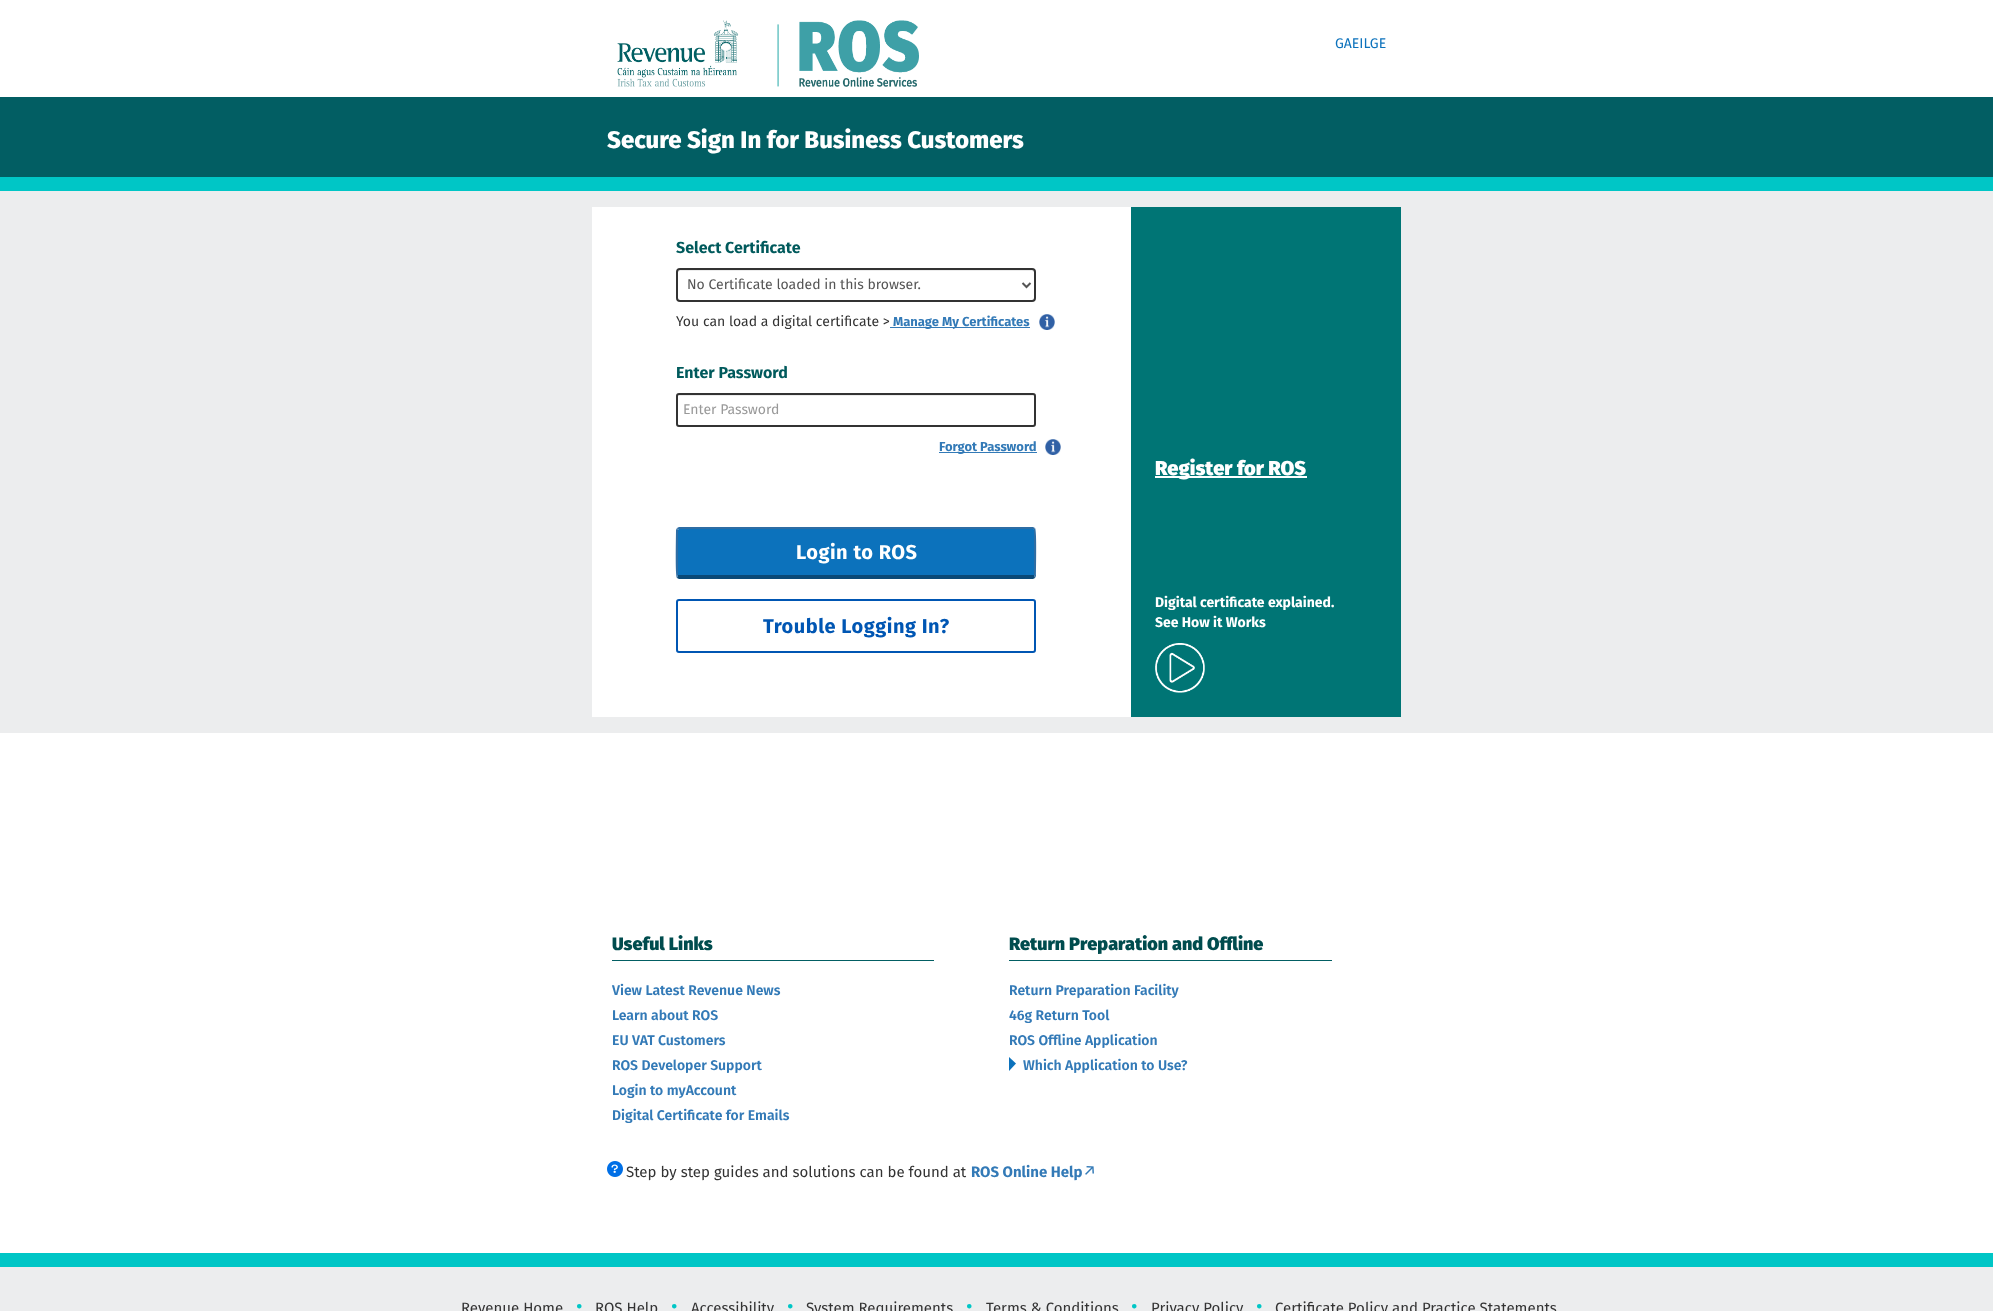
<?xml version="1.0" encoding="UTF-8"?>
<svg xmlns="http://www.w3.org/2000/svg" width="1993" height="1311">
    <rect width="100%" height="100%" fill="#FFFFFF"/>
    <image x="617" y="20" width="162" height="67" href="img_01.png"/>
    <image x="799" y="20" width="120" height="67" href="img_02.png"/>
    <text x="1335" y="48" font-family="Fira Sans" font-size="14" fill="#0C72BC">GAEILGE</text>
    <rect x="0" y="97" width="1993" height="80" fill="#025E63"/>
    <rect x="0" y="177" width="1993" height="14" fill="#00C6C6"/>
    <text x="607" y="148" font-family="Fira Sans" font-size="24" font-weight="800" fill="#FFFFFF">Secure Sign In for Business Customers</text>
    <rect x="0" y="191" width="1993" height="542" fill="#ECEDEE"/>
    <rect x="592" y="207" width="539" height="510" fill="#FFFFFF"/>
    <text x="676" y="253" font-family="Fira Sans" font-size="16" font-weight="700" fill="#005A5C">Select Certificate</text>
    <path d="M 680 271 H 1032 C 1033 271 1034 272 1034 273 C 1034 272 1034 270 1032 270 H 680 C 678 270 678 272 678 273 C 678 272 679 271 680 271 Z" fill="#ECECEC"/>
    <rect x="677" y="269" width="358" height="32" rx="3" fill="none" stroke="#333333" stroke-width="2"/>
    <path d="M 1022.5 283 L 1026.5 287 L 1030.5 283" fill="none" stroke="#555555" stroke-width="2"/>
    <text x="687" y="289" font-family="Fira Sans" font-size="14" fill="#555555">No Certificate loaded in this browser.</text>
    <text x="676" y="326" font-family="Fira Sans" font-size="14" fill="#333333">You can load a digital certificate &gt;</text>
    <rect x="890" y="327" width="140" height="1" fill="#337AB7"/>
    <text x="893" y="326" font-family="Fira Sans" font-size="13" font-weight="700" fill="#337AB7">Manage My Certificates</text>
    <image x="1039" y="314" width="16" height="16" href="img_03.png"/>
    <text x="676" y="378" font-family="Fira Sans" font-size="16" font-weight="700" fill="#005A5C">Enter Password</text>
    <path d="M 679 396 H 1033 C 1034 396 1034 396 1034 397 V 396 L 1033 395 H 678 V 397 C 678 396 678 396 679 396 Z" fill="#ECECEC"/>
    <rect x="677" y="394" width="358" height="32" rx="2" fill="none" stroke="#333333" stroke-width="2"/>
    <text x="683" y="414" font-family="Fira Sans" font-size="14" fill="#999999">Enter Password</text>
    <rect x="939" y="452" width="98" height="1" fill="#337AB7"/>
    <text x="939" y="451" font-family="Fira Sans" font-size="13" font-weight="700" fill="#337AB7">Forgot Password</text>
    <image x="1045" y="439" width="16" height="16" href="img_03.png"/>
    <path d="M 679 529 H 1033 C 1034 529 1034 529 1034 530 V 575 H 678 V 530 Z" fill="#0C72BC"/>
    <path d="M 679 527 L 677 528 L 678 530 L 679 529 H 1034 L 1035 528 L 1033 527 Z" fill="#2E6DA4"/>
    <path d="M 1036 576 C 1036 570 1037 530 1035 528 L 1034 529 V 575 L 1035 578 Z" fill="#2E6DA4"/>
    <path d="M 679 579 H 1033 L 1035 578 L 1034 575 H 678 L 677 578 Z" fill="#0A4977"/>
    <path d="M 676 530 C 676 536 675 576 677 578 L 678 575 V 530 L 677 528 Z" fill="#2E6DA4"/>
    <text x="796" y="559" font-family="Fira Sans" font-size="20" font-weight="700" letter-spacing="0.5" fill="#FFFFFF">Login to ROS</text>
    <rect x="677" y="600" width="358" height="52" rx="2" fill="none" stroke="#0056B3" stroke-width="2"/>
    <text x="763" y="633" font-family="Fira Sans" font-size="20" font-weight="700" letter-spacing="0.5" fill="#0056B3">Trouble Logging In?</text>
    <rect x="1131" y="207" width="270" height="510" fill="#007575"/>
    <rect x="1155" y="476" width="152" height="2" fill="#FFFFFF"/>
    <text x="1155" y="475" font-family="Fira Sans" font-size="20" font-weight="900" fill="#FFFFFF">Register for ROS</text>
    <text font-family="Fira Sans" font-size="14" font-weight="700" fill="#FFFFFF">
        <tspan x="1155" y="607">Digital certificate explained.</tspan>
        <tspan x="1155" y="627">See How it Works</tspan>
    </text>
    <image x="1155" y="643" width="50" height="50" href="img_04.png"/>
    <rect x="612" y="960" width="322" height="1" fill="#025E63"/>
    <text x="612" y="950" font-family="Fira Sans" font-size="18" font-weight="900" fill="#004C4E">Useful Links</text>
    <text font-family="Fira Sans" font-size="14" font-weight="600" fill="#337AB7">
        <tspan x="612" y="995">View Latest Revenue News</tspan>
        <tspan x="612" y="1020">Learn about ROS</tspan>
        <tspan x="612" y="1045">EU VAT Customers</tspan>
        <tspan x="612" y="1070">ROS Developer Support</tspan>
        <tspan x="612" y="1095">Login to myAccount</tspan>
        <tspan x="612" y="1120">Digital Certificate for Emails</tspan>
    </text>
    <rect x="1009" y="960" width="323" height="1" fill="#025E63"/>
    <text x="1009" y="950" font-family="Fira Sans" font-size="18" font-weight="900" fill="#004C4E">Return Preparation and Offline</text>
    <text font-family="Fira Sans" font-size="14" font-weight="600" fill="#337AB7">
        <tspan x="1009" y="995">Return Preparation Facility</tspan>
        <tspan x="1009" y="1020">46g Return Tool</tspan>
        <tspan x="1009" y="1045">ROS Offline Application</tspan>
    </text>
    <path d="M 1009 1057 V 1071 L 1016 1063.5 Z" fill="#0C72BC"/>
    <text x="1023" y="1070" font-family="Fira Sans" font-size="14" font-weight="600" fill="#337AB7">Which Application to Use?</text>
    <image x="607" y="1161" width="16" height="16" href="img_05.png"/>
    <text x="626" y="1177" font-family="Fira Sans" font-size="15" fill="#333333">Step by step guides and solutions can be found at</text>
    <text x="971" y="1177" font-family="Fira Sans" font-size="15" font-weight="700" fill="#337AB7">ROS Online Help</text>
    <image x="1085" y="1166" width="9" height="9" href="img_06.png"/>
    <rect x="0" y="1267" width="1993" height="44" fill="#ECEDEE"/>
    <rect x="0" y="1253" width="1993" height="14" fill="#00C6C6"/>
    <text x="461" y="1313" font-family="Fira Sans" font-size="15" fill="#333333">Revenue Home</text>
    <text x="576" y="1313" font-family="Fira Sans" font-size="20" fill="#00C6C6">•</text>
    <text x="595" y="1313" font-family="Fira Sans" font-size="15" fill="#333333">ROS Help</text>
    <text x="671" y="1313" font-family="Fira Sans" font-size="20" fill="#00C6C6">•</text>
    <text x="691" y="1313" font-family="Fira Sans" font-size="15" fill="#333333">Accessibility</text>
    <text x="787" y="1313" font-family="Fira Sans" font-size="20" fill="#00C6C6">•</text>
    <text x="806" y="1313" font-family="Fira Sans" font-size="15" fill="#333333">System Requirements</text>
    <text x="966" y="1313" font-family="Fira Sans" font-size="20" fill="#00C6C6">•</text>
    <text x="986" y="1313" font-family="Fira Sans" font-size="15" fill="#333333">Terms &amp; Conditions</text>
    <text x="1131" y="1313" font-family="Fira Sans" font-size="20" fill="#00C6C6">•</text>
    <text x="1151" y="1313" font-family="Fira Sans" font-size="15" fill="#333333">Privacy Policy</text>
    <text x="1256" y="1313" font-family="Fira Sans" font-size="20" fill="#00C6C6">•</text>
    <text x="1275" y="1313" font-family="Fira Sans" font-size="15" fill="#333333">Certificate Policy and Practice Statements</text>
</svg>
